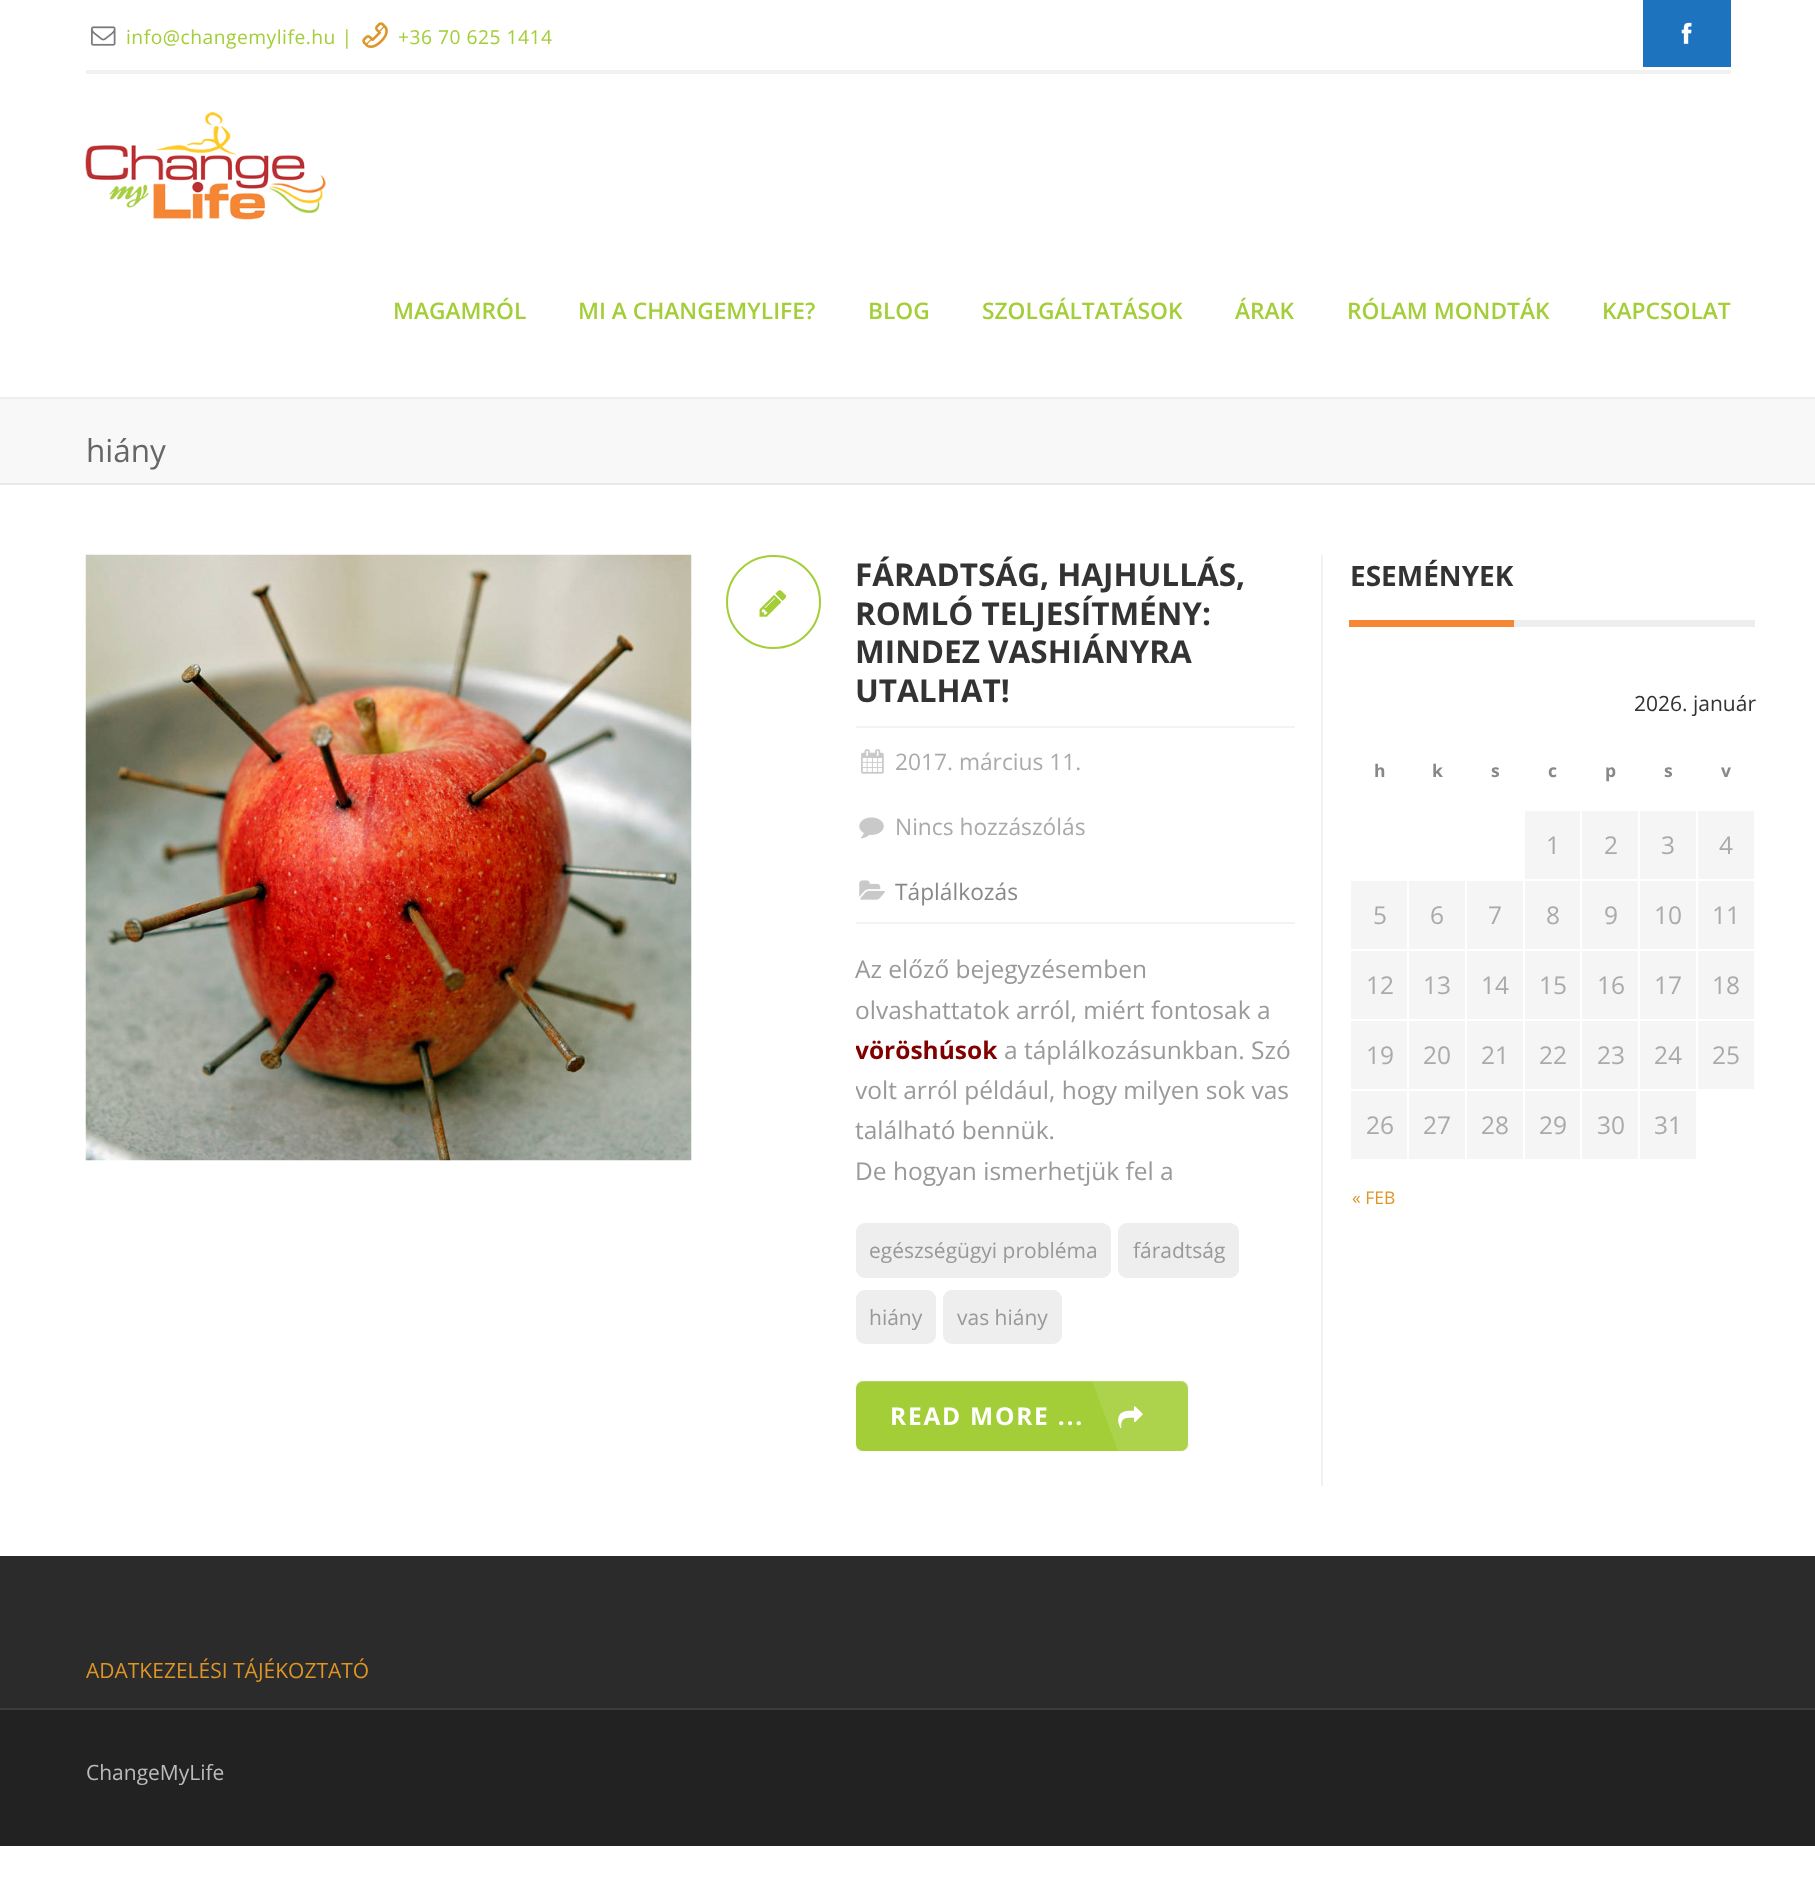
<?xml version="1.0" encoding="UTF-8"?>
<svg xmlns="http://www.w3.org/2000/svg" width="1815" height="1887">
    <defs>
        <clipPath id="clip1"><rect x="856" y="555" width="439" height="896"/></clipPath>
        <clipPath id="clip2"><rect x="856" y="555" width="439" height="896"/></clipPath>
        <filter id="blur1" x="-50%" y="-200%" width="200%" height="500%"><feGaussianBlur stdDeviation="2"/></filter>
    </defs>
    <rect width="100%" height="100%" fill="#FFFFFF"/>
    <rect x="86" y="70" width="1645" height="4" fill="#F1F1F1"/>
    <image x="91" y="26" width="25" height="20" href="img_01.png"/>
    <text x="126" y="44" font-family="Open Sans" font-size="19.25" letter-spacing="0.5" fill="#A3CE37">info@changemylife.hu |</text>
    <image x="362" y="22" width="26" height="26" href="img_02.png"/>
    <text x="398" y="44" font-family="Open Sans" font-size="19.25" letter-spacing="0.5" fill="#A3CE37">+36 70 625 1414</text>
    <rect x="1643" y="0" width="88" height="67" fill="#1E73BE"/>
    <image x="1681" y="22" width="11" height="22" href="img_03.png"/>
    <image x="85" y="112" width="241" height="108" href="img_04.png"/>
    <text x="393" y="319" font-family="Open Sans" font-size="22.75" font-weight="600" fill="#A3CE37">MAGAMRÓL</text>
    <text x="578" y="319" font-family="Open Sans" font-size="22.75" font-weight="600" fill="#A3CE37">MI A CHANGEMYLIFE?</text>
    <text x="868" y="319" font-family="Open Sans" font-size="22.75" font-weight="600" fill="#A3CE37">BLOG</text>
    <text x="982" y="319" font-family="Open Sans" font-size="22.75" font-weight="600" fill="#A3CE37">SZOLGÁLTATÁSOK</text>
    <text x="1235" y="319" font-family="Open Sans" font-size="22.75" font-weight="600" fill="#A3CE37">ÁRAK</text>
    <text x="1347" y="319" font-family="Open Sans" font-size="22.75" font-weight="600" fill="#A3CE37">RÓLAM MONDTÁK</text>
    <text x="1602" y="319" font-family="Open Sans" font-size="22.75" font-weight="600" fill="#A3CE37">KAPCSOLAT</text>
    <rect x="0" y="397" width="1815" height="2" fill="#EEEEEE"/>
    <rect x="0" y="399" width="1815" height="84" fill="#F8F8F8"/>
    <rect x="0" y="483" width="1815" height="2" fill="#E9E9E9"/>
    <text x="86" y="462" font-family="Open Sans" font-size="31.5" fill="#666666">hiány</text>
    <rect x="1321" y="555" width="2" height="931" fill="#F1F1F1"/>
    <image x="85" y="554" width="607" height="607" href="img_05.png"/>
    <rect x="727" y="556" width="93" height="92" rx="46" fill="none" stroke="#A3CE37" stroke-width="2"/>
    <image x="759" y="590" width="28" height="27" href="img_06.png"/>
    <text font-family="Open Sans" font-size="31.5" font-weight="700" fill="#333333">
        <tspan x="855" y="586">FÁRADTSÁG, HAJHULLÁS,</tspan>
        <tspan x="855" y="625">ROMLÓ TELJESÍTMÉNY:</tspan>
        <tspan x="855" y="663">MINDEZ VASHIÁNYRA</tspan>
        <tspan x="855" y="702">UTALHAT!</tspan>
    </text>
    <rect x="856" y="726" width="439" height="2" fill="#F3F3F3"/>
    <rect x="856" y="922" width="439" height="2" fill="#F3F3F3"/>
    <image x="861" y="749" width="23" height="25" href="img_07.png"/>
    <text x="895" y="770" font-family="Open Sans" font-size="22.75" fill="#AAAAAA">2017. március 11.</text>
    <image x="859" y="817" width="25" height="22" href="img_08.png"/>
    <text x="895" y="835" font-family="Open Sans" font-size="22.75" fill="#AAAAAA">Nincs hozzászólás</text>
    <image x="859" y="880" width="26" height="20" href="img_09.png"/>
    <text x="895" y="900" font-family="Open Sans" font-size="22.75" fill="#888888">Táplálkozás</text>
    <text font-family="Open Sans" font-size="24.5" fill="#999999">
        <tspan x="855" y="978">Az előző bejegyzésemben</tspan>
        <tspan x="855" y="1019">olvashattatok arról, miért fontosak a</tspan>
    </text>
    <g clip-path="url(#clip1)">
        <text x="855" y="1059" font-family="Open Sans" font-size="24.5" font-weight="700" fill="#800000">vöröshúsok</text>
    </g>
    <text x="1004" y="1059" font-family="Open Sans" font-size="24.5" fill="#999999">a táplálkozásunkban. Szó</text>
    <g clip-path="url(#clip1)">
        <text x="855" y="1099" font-family="Open Sans" font-size="24.5" fill="#999999">volt arról például, hogy milyen sok vas</text>
    </g>
    <text font-family="Open Sans" font-size="24.5" fill="#999999">
        <tspan x="855" y="1139">található bennük.</tspan>
        <tspan x="855" y="1180">De hogyan ismerhetjük fel a</tspan>
    </text>
    <rect x="856" y="1223" width="255" height="55" rx="9" fill="#EEEEEE"/>
    <text x="869" y="1258" font-family="Open Sans" font-size="21" fill="#999999">egészségügyi probléma</text>
    <rect x="1118" y="1223" width="121" height="55" rx="9" fill="#EEEEEE"/>
    <text x="1133" y="1258" font-family="Open Sans" font-size="21" fill="#999999">fáradtság</text>
    <rect x="856" y="1290" width="80" height="54" rx="9" fill="#EEEEEE"/>
    <text x="869" y="1325" font-family="Open Sans" font-size="21" fill="#999999">hiány</text>
    <rect x="943" y="1290" width="119" height="54" rx="9" fill="#EEEEEE"/>
    <text x="957" y="1325" font-family="Open Sans" font-size="21" fill="#999999">vas hiány</text>
    <g clip-path="url(#clip2)">
        <rect x="856" y="1383" width="332" height="70" rx="7" fill="#000000" fill-opacity="0.05" filter="url(#blur1)"/>
    </g>
    <rect x="856" y="1381" width="332" height="70" rx="7" fill="#A3CE37"/>
    <path d="M 863 1382 H 1181 C 1185 1382 1188 1386 1188 1390 V 1388 C 1188 1384 1185 1381 1181 1381 H 863 C 859 1381 856 1384 856 1388 V 1390 C 856 1386 859 1382 863 1382 Z" fill="#FFFFFF" fill-opacity="0.2"/>
    <path d="M 1118 1451 L 1092 1381 H 1181 C 1185 1381 1188 1384 1188 1388 V 1444 C 1188 1448 1185 1451 1181 1451 Z" fill="#FFFFFF" fill-opacity="0.1"/>
    <text x="890" y="1425" font-family="Open Sans" font-size="24.5" font-weight="700" letter-spacing="1.75" fill="#FFFFFF">READ MORE ...</text>
    <image x="1118" y="1406" width="25" height="23" href="img_10.png"/>
    <rect x="1514" y="620" width="241" height="7" fill="#EEEEEE"/>
    <text x="1350" y="586" font-family="Open Sans" font-size="28" font-weight="700" fill="#333333">ESEMÉNYEK</text>
    <rect x="1349" y="620" width="165" height="7" fill="#F58634"/>
    <text x="1634" y="711" font-family="Open Sans" font-size="21" fill="#333333">2026. január</text>
    <text x="1374" y="777" font-family="Open Sans" font-size="17.5" font-weight="700" fill="#888888">h</text>
    <text x="1432" y="777" font-family="Open Sans" font-size="17.5" font-weight="700" fill="#888888">k</text>
    <text x="1491" y="777" font-family="Open Sans" font-size="17.5" font-weight="700" fill="#888888">s</text>
    <text x="1548" y="777" font-family="Open Sans" font-size="17.5" font-weight="700" fill="#888888">c</text>
    <text x="1605" y="777" font-family="Open Sans" font-size="17.5" font-weight="700" fill="#888888">p</text>
    <text x="1664" y="777" font-family="Open Sans" font-size="17.5" font-weight="700" fill="#888888">s</text>
    <text x="1721" y="777" font-family="Open Sans" font-size="17.5" font-weight="700" fill="#888888">v</text>
    <rect x="1525" y="811" width="55" height="68" fill="#F5F5F5"/>
    <text x="1546" y="854" font-family="Open Sans" font-size="24.5" fill="#AAAAAA">1</text>
    <rect x="1582" y="811" width="56" height="68" fill="#F5F5F5"/>
    <text x="1604" y="854" font-family="Open Sans" font-size="24.5" fill="#AAAAAA">2</text>
    <rect x="1640" y="811" width="56" height="68" fill="#F5F5F5"/>
    <text x="1661" y="854" font-family="Open Sans" font-size="24.5" fill="#AAAAAA">3</text>
    <rect x="1698" y="811" width="56" height="68" fill="#F5F5F5"/>
    <text x="1719" y="854" font-family="Open Sans" font-size="24.5" fill="#AAAAAA">4</text>
    <rect x="1351" y="881" width="56" height="68" fill="#F5F5F5"/>
    <text x="1373" y="924" font-family="Open Sans" font-size="24.5" fill="#AAAAAA">5</text>
    <rect x="1409" y="881" width="56" height="68" fill="#F5F5F5"/>
    <text x="1430" y="924" font-family="Open Sans" font-size="24.5" fill="#AAAAAA">6</text>
    <rect x="1467" y="881" width="56" height="68" fill="#F5F5F5"/>
    <text x="1488" y="924" font-family="Open Sans" font-size="24.5" fill="#AAAAAA">7</text>
    <rect x="1525" y="881" width="55" height="68" fill="#F5F5F5"/>
    <text x="1546" y="924" font-family="Open Sans" font-size="24.5" fill="#AAAAAA">8</text>
    <rect x="1582" y="881" width="56" height="68" fill="#F5F5F5"/>
    <text x="1604" y="924" font-family="Open Sans" font-size="24.5" fill="#AAAAAA">9</text>
    <rect x="1640" y="881" width="56" height="68" fill="#F5F5F5"/>
    <text x="1654" y="924" font-family="Open Sans" font-size="24.5" fill="#AAAAAA">10</text>
    <rect x="1698" y="881" width="56" height="68" fill="#F5F5F5"/>
    <text x="1712" y="924" font-family="Open Sans" font-size="24.5" fill="#AAAAAA">11</text>
    <rect x="1351" y="951" width="56" height="68" fill="#F5F5F5"/>
    <text x="1366" y="994" font-family="Open Sans" font-size="24.5" fill="#AAAAAA">12</text>
    <rect x="1409" y="951" width="56" height="68" fill="#F5F5F5"/>
    <text x="1423" y="994" font-family="Open Sans" font-size="24.5" fill="#AAAAAA">13</text>
    <rect x="1467" y="951" width="56" height="68" fill="#F5F5F5"/>
    <text x="1481" y="994" font-family="Open Sans" font-size="24.5" fill="#AAAAAA">14</text>
    <rect x="1525" y="951" width="55" height="68" fill="#F5F5F5"/>
    <text x="1539" y="994" font-family="Open Sans" font-size="24.5" fill="#AAAAAA">15</text>
    <rect x="1582" y="951" width="56" height="68" fill="#F5F5F5"/>
    <text x="1597" y="994" font-family="Open Sans" font-size="24.5" fill="#AAAAAA">16</text>
    <rect x="1640" y="951" width="56" height="68" fill="#F5F5F5"/>
    <text x="1654" y="994" font-family="Open Sans" font-size="24.5" fill="#AAAAAA">17</text>
    <rect x="1698" y="951" width="56" height="68" fill="#F5F5F5"/>
    <text x="1712" y="994" font-family="Open Sans" font-size="24.5" fill="#AAAAAA">18</text>
    <rect x="1351" y="1021" width="56" height="68" fill="#F5F5F5"/>
    <text x="1366" y="1064" font-family="Open Sans" font-size="24.5" fill="#AAAAAA">19</text>
    <rect x="1409" y="1021" width="56" height="68" fill="#F5F5F5"/>
    <text x="1423" y="1064" font-family="Open Sans" font-size="24.5" fill="#AAAAAA">20</text>
    <rect x="1467" y="1021" width="56" height="68" fill="#F5F5F5"/>
    <text x="1481" y="1064" font-family="Open Sans" font-size="24.5" fill="#AAAAAA">21</text>
    <rect x="1525" y="1021" width="55" height="68" fill="#F5F5F5"/>
    <text x="1539" y="1064" font-family="Open Sans" font-size="24.5" fill="#AAAAAA">22</text>
    <rect x="1582" y="1021" width="56" height="68" fill="#F5F5F5"/>
    <text x="1597" y="1064" font-family="Open Sans" font-size="24.5" fill="#AAAAAA">23</text>
    <rect x="1640" y="1021" width="56" height="68" fill="#F5F5F5"/>
    <text x="1654" y="1064" font-family="Open Sans" font-size="24.5" fill="#AAAAAA">24</text>
    <rect x="1698" y="1021" width="56" height="68" fill="#F5F5F5"/>
    <text x="1712" y="1064" font-family="Open Sans" font-size="24.5" fill="#AAAAAA">25</text>
    <rect x="1351" y="1091" width="56" height="68" fill="#F5F5F5"/>
    <text x="1366" y="1134" font-family="Open Sans" font-size="24.5" fill="#AAAAAA">26</text>
    <rect x="1409" y="1091" width="56" height="68" fill="#F5F5F5"/>
    <text x="1423" y="1134" font-family="Open Sans" font-size="24.5" fill="#AAAAAA">27</text>
    <rect x="1467" y="1091" width="56" height="68" fill="#F5F5F5"/>
    <text x="1481" y="1134" font-family="Open Sans" font-size="24.5" fill="#AAAAAA">28</text>
    <rect x="1525" y="1091" width="55" height="68" fill="#F5F5F5"/>
    <text x="1539" y="1134" font-family="Open Sans" font-size="24.5" fill="#AAAAAA">29</text>
    <rect x="1582" y="1091" width="56" height="68" fill="#F5F5F5"/>
    <text x="1597" y="1134" font-family="Open Sans" font-size="24.5" fill="#AAAAAA">30</text>
    <rect x="1640" y="1091" width="56" height="68" fill="#F5F5F5"/>
    <text x="1654" y="1134" font-family="Open Sans" font-size="24.5" fill="#AAAAAA">31</text>
    <text x="1352" y="1204" font-family="Open Sans" font-size="17.5" fill="#DD9527">« FEB</text>
    <rect x="0" y="1556" width="1815" height="152" fill="#2B2B2B"/>
    <text x="86" y="1678" font-family="Open Sans" font-size="21" fill="#DD9527">ADATKEZELÉSI TÁJÉKOZTATÓ</text>
    <rect x="0" y="1710" width="1815" height="136" fill="#222222"/>
    <rect x="0" y="1708" width="1815" height="2" fill="#3C3C3C"/>
    <text x="86" y="1780" font-family="Open Sans" font-size="21" fill="#BBBBBB">ChangeMyLife</text>
</svg>
